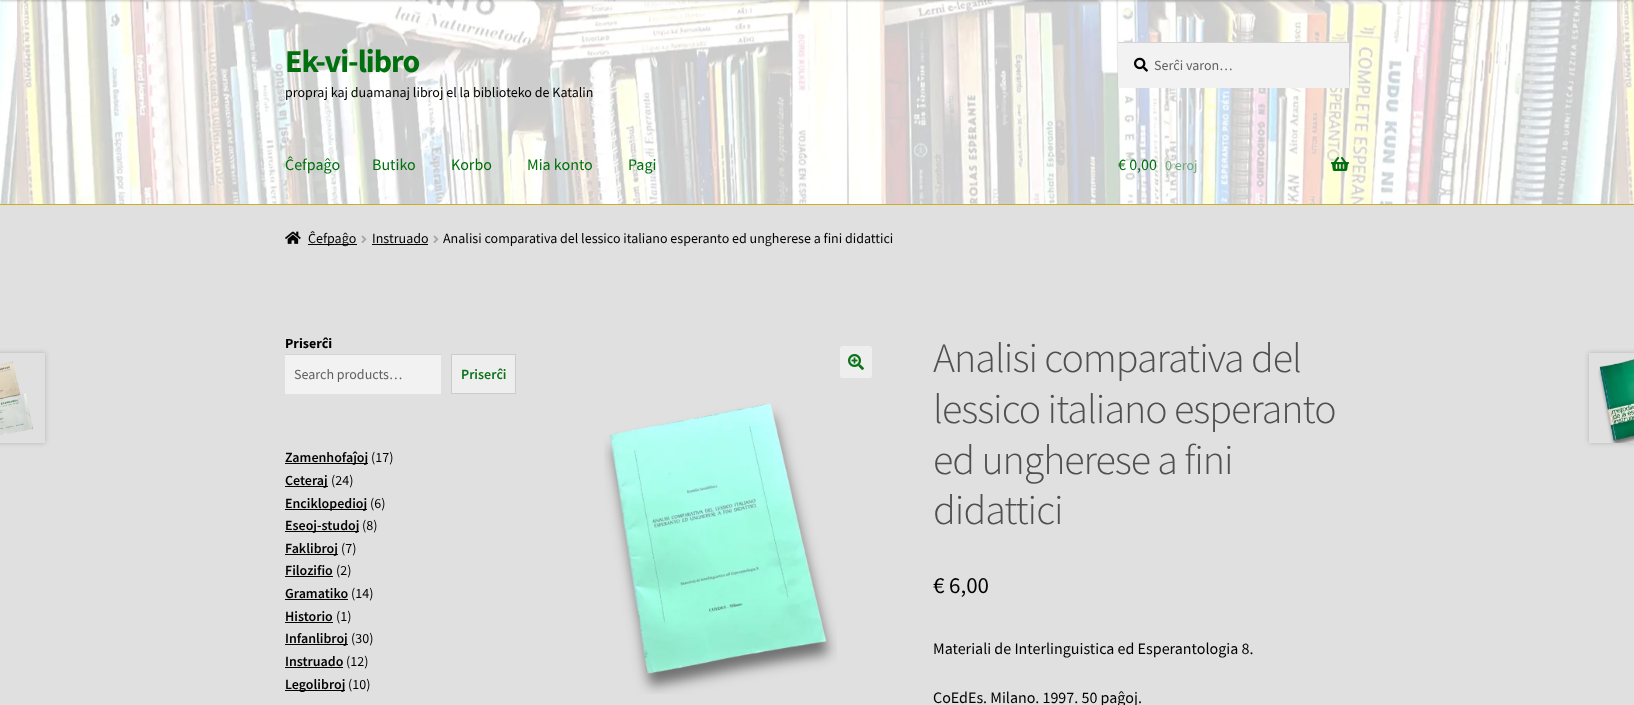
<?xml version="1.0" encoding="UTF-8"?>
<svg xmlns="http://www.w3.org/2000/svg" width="1634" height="705">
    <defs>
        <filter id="blur1" x="-50%" y="-200%" width="200%" height="500%"><feGaussianBlur stdDeviation="1"/></filter>
        <clipPath id="clip1"><path d="M 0 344 H 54 V 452 H 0 Z M -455 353 H 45 V 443 H -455 Z" clip-rule="evenodd"/></clipPath>
        <filter id="blur2" x="-50%" y="-200%" width="200%" height="500%"><feGaussianBlur stdDeviation="2.5"/></filter>
        <clipPath id="clip2"><path d="M 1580 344 H 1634 V 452 H 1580 Z M 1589 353 H 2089 V 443 H 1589 Z" clip-rule="evenodd"/></clipPath>
    </defs>
    <rect width="100%" height="100%" fill="#E0E0E0"/>
    <image x="0" y="0" width="1634" height="204" href="img_01.png"/>
    <rect x="0" y="-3" width="1634" height="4" fill="#000000" fill-opacity="0.2" filter="url(#blur1)"/>
    <rect x="0" y="204" width="1634" height="1" fill="#CCAD23"/>
    <text x="285" y="72" font-family="Source Sans Pro" font-size="32" font-weight="700" letter-spacing="-1" fill="#00700E">Ek-vi-libro</text>
    <text x="285" y="97" font-family="Source Sans Pro" font-size="14" fill="#000000">propraj kaj duamanaj libroj el la biblioteko de Katalin</text>
    <rect x="1118" y="43" width="231" height="45" fill="#F2F2F2"/>
    <image x="1134" y="57" width="14" height="15" href="img_02.png"/>
    <rect x="1118" y="42" width="231" height="1" fill="#D4D4D4"/>
    <text x="1154" y="70" font-family="Source Sans Pro" font-size="14" fill="#616161">Serĉi varon…</text>
    <text x="285" y="170" font-family="Source Sans Pro" font-size="16" fill="#00700E">Ĉefpaĝo</text>
    <text x="372" y="170" font-family="Source Sans Pro" font-size="16" fill="#00700E">Butiko</text>
    <text x="451" y="170" font-family="Source Sans Pro" font-size="16" fill="#00700E">Korbo</text>
    <text x="527" y="170" font-family="Source Sans Pro" font-size="16" fill="#00700E">Mia konto</text>
    <text x="628" y="170" font-family="Source Sans Pro" font-size="16" fill="#00700E">Pagi</text>
    <text x="1118" y="170" font-family="Source Sans Pro" font-size="16" fill="#00700E">€ 0,00</text>
    <text x="1165" y="170" font-family="Source Sans Pro" font-size="14" fill="#70AA7A">0 eroj</text>
    <image x="1331" y="157" width="18" height="14" href="img_03.png"/>
    <image x="285" y="231" width="16" height="13" href="img_04.png"/>
    <rect x="308" y="244" width="49" height="1" fill="#050505"/>
    <text x="308" y="243" font-family="Source Sans Pro" font-size="14" fill="#000000">Ĉefpaĝo</text>
    <image x="361" y="235" width="6" height="8" href="img_05.png"/>
    <text x="372" y="243" font-family="Source Sans Pro" font-size="14" fill="#000000">Instruado</text>
    <rect x="372" y="244" width="56" height="1" fill="#050505"/>
    <image x="433" y="235" width="6" height="8" href="img_05.png"/>
    <text x="443" y="243" font-family="Source Sans Pro" font-size="14" fill="#000000">Analisi comparativa del lessico italiano esperanto ed ungherese a fini didattici</text>
    <text x="285" y="348" font-family="Source Sans Pro" font-size="14" font-weight="700" fill="#000000">Priserĉi</text>
    <rect x="285" y="355" width="156" height="39" fill="#F2F2F2"/>
    <rect x="285" y="354" width="156" height="1" fill="#D4D4D4"/>
    <text x="294" y="379" font-family="Source Sans Pro" font-size="14" fill="#616161">Search products…</text>
    <rect x="451.5" y="354.5" width="64" height="39" fill="#EEEEEE" stroke="#CCCCCC"/>
    <text x="461" y="379" font-family="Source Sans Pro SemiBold" font-size="14" font-weight="600" fill="#0B7219">Priserĉi</text>
    <rect x="285" y="463" width="83" height="1" fill="#050505"/>
    <text x="285" y="462" font-family="Source Sans Pro SemiBold" font-size="14" font-weight="600" fill="#000000">Zamenhofaĵoj</text>
    <text x="371" y="462" font-family="Source Sans Pro" font-size="14" fill="#000000">(17)</text>
    <rect x="285" y="486" width="43" height="1" fill="#050505"/>
    <text x="285" y="485" font-family="Source Sans Pro SemiBold" font-size="14" font-weight="600" fill="#000000">Ceteraj</text>
    <text x="331" y="485" font-family="Source Sans Pro" font-size="14" fill="#000000">(24)</text>
    <rect x="285" y="509" width="82" height="1" fill="#050505"/>
    <text x="285" y="508" font-family="Source Sans Pro SemiBold" font-size="14" font-weight="600" fill="#000000">Enciklopedioj</text>
    <text x="370" y="508" font-family="Source Sans Pro" font-size="14" fill="#000000">(6)</text>
    <rect x="285" y="531" width="74" height="1" fill="#050505"/>
    <text x="285" y="530" font-family="Source Sans Pro SemiBold" font-size="14" font-weight="600" fill="#000000">Eseoj-studoj</text>
    <text x="362" y="530" font-family="Source Sans Pro" font-size="14" fill="#000000">(8)</text>
    <rect x="285" y="554" width="53" height="1" fill="#050505"/>
    <text x="285" y="553" font-family="Source Sans Pro SemiBold" font-size="14" font-weight="600" fill="#000000">Faklibroj</text>
    <text x="341" y="553" font-family="Source Sans Pro" font-size="14" fill="#000000">(7)</text>
    <text x="285" y="575" font-family="Source Sans Pro SemiBold" font-size="14" font-weight="600" fill="#000000">Filozifio</text>
    <rect x="285" y="576" width="48" height="1" fill="#050505"/>
    <text x="336" y="575" font-family="Source Sans Pro" font-size="14" fill="#000000">(2)</text>
    <text x="285" y="598" font-family="Source Sans Pro SemiBold" font-size="14" font-weight="600" fill="#000000">Gramatiko</text>
    <rect x="285" y="599" width="63" height="1" fill="#050505"/>
    <text x="351" y="598" font-family="Source Sans Pro" font-size="14" fill="#000000">(14)</text>
    <text x="285" y="621" font-family="Source Sans Pro SemiBold" font-size="14" font-weight="600" fill="#000000">Historio</text>
    <rect x="285" y="622" width="48" height="1" fill="#050505"/>
    <text x="336" y="621" font-family="Source Sans Pro" font-size="14" fill="#000000">(1)</text>
    <rect x="285" y="644" width="63" height="1" fill="#050505"/>
    <text x="285" y="643" font-family="Source Sans Pro SemiBold" font-size="14" font-weight="600" fill="#000000">Infanlibroj</text>
    <text x="351" y="643" font-family="Source Sans Pro" font-size="14" fill="#000000">(30)</text>
    <text x="285" y="666" font-family="Source Sans Pro SemiBold" font-size="14" font-weight="600" fill="#000000">Instruado</text>
    <rect x="285" y="667" width="58" height="1" fill="#050505"/>
    <text x="346" y="666" font-family="Source Sans Pro" font-size="14" fill="#000000">(12)</text>
    <rect x="285" y="690" width="60" height="1" fill="#050505"/>
    <text x="285" y="689" font-family="Source Sans Pro SemiBold" font-size="14" font-weight="600" fill="#000000">Legolibroj</text>
    <text x="348" y="689" font-family="Source Sans Pro" font-size="14" fill="#000000">(10)</text>
    <text font-family="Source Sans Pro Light" font-size="41.9" font-weight="300" letter-spacing="-1" fill="#4F4F4F">
        <tspan x="933" y="372">Analisi comparativa del</tspan>
        <tspan x="933" y="423">lessico italiano esperanto</tspan>
        <tspan x="933" y="474">ed ungherese a fini</tspan>
        <tspan x="933" y="524">didattici</tspan>
    </text>
    <text x="933" y="593" font-family="Source Sans Pro" font-size="23" fill="#000000">€ 6,00</text>
    <text x="933" y="654" font-family="Source Sans Pro" font-size="16" fill="#000000">Materiali de Interlinguistica ed Esperantologia 8.</text>
    <text x="933" y="703" font-family="Source Sans Pro" font-size="16" fill="#000000">CoEdEs. Milano. 1997. 50 paĝoj.</text>
    <g clip-path="url(#clip1)">
        <rect x="-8" y="353" width="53" height="90" fill="#000000" fill-opacity="0.2" filter="url(#blur2)"/>
    </g>
    <image x="0" y="361" width="34" height="75" href="img_06.png"/>
    <g clip-path="url(#clip2)">
        <rect x="1589" y="353" width="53" height="90" fill="#000000" fill-opacity="0.2" filter="url(#blur2)"/>
    </g>
    <image x="1598" y="359" width="36" height="84" href="img_07.png"/>
    <rect x="840" y="346" width="32" height="32" rx="3" fill="#EEEEEE"/>
    <image x="848" y="354" width="16" height="16" href="img_08.png"/>
    <image x="604" y="403" width="233" height="291" href="img_09.png"/>
</svg>
